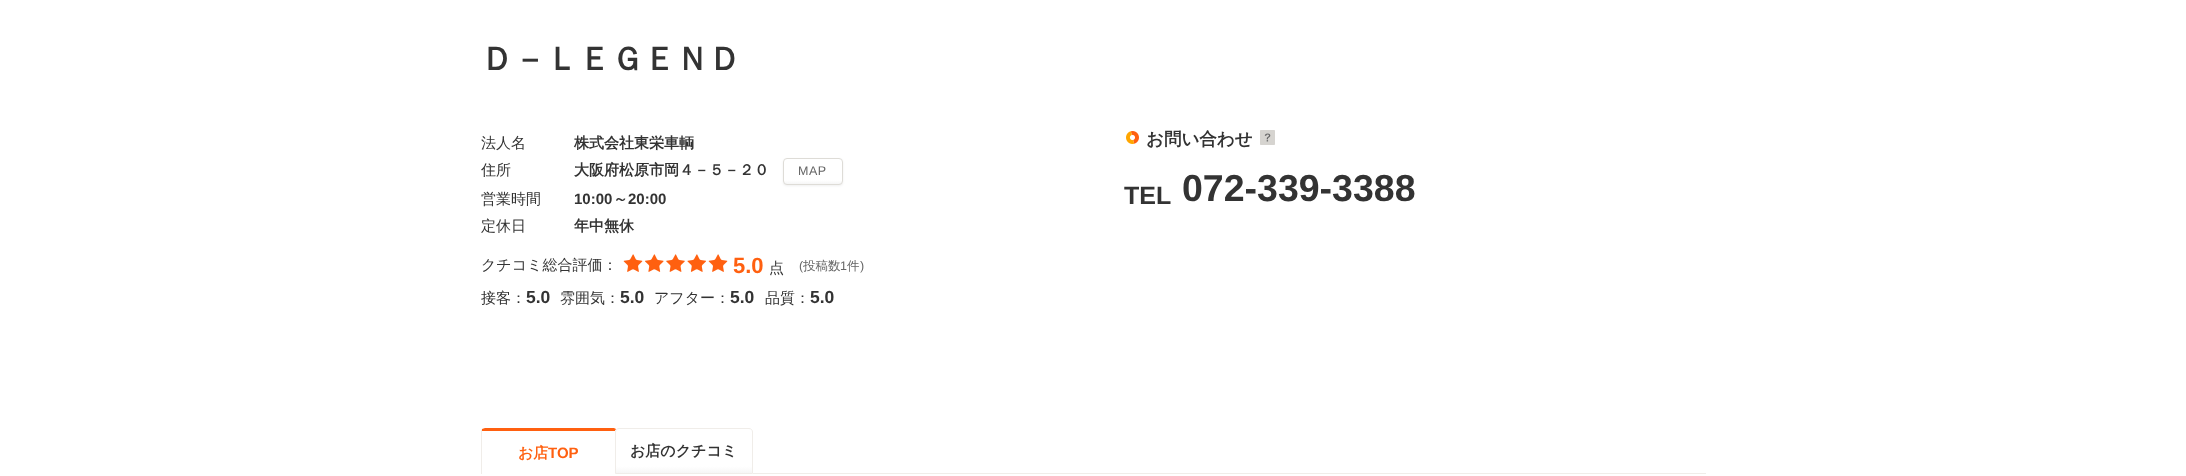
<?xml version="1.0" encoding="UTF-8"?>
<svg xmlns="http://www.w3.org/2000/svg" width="2186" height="476">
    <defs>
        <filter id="blur1" x="-50%" y="-200%" width="200%" height="500%"><feGaussianBlur stdDeviation="1"/></filter>
        <clipPath id="clip1"><rect x="783" y="158" width="60" height="27" rx="4"/></clipPath>
        <linearGradient id="g1" gradientUnits="userSpaceOnUse" x1="813" y1="159" x2="813" y2="184"><stop offset="0.85" stop-color="#FFFFFF"/><stop offset="1" stop-color="#F6F6F6"/></linearGradient>
        <clipPath id="clip2"><path d="M 619 428 H 749 C 751 428 753 430 753 432 V 474 H 615 V 432 C 615 430 617 428 619 428 Z"/></clipPath>
        <linearGradient id="g2" gradientUnits="userSpaceOnUse" x1="684" y1="429" x2="684" y2="473"><stop offset="0.85" stop-color="#FFFFFF"/><stop offset="1" stop-color="#F6F6F6"/></linearGradient>
    </defs>
    <rect width="100%" height="100%" fill="#FFFFFF"/>
    <text x="481" y="70" font-family="WenQuanYi Zen Hei" font-size="32.5" font-weight="700" fill="#333333">Ｄ－ＬＥＧＥＮＤ</text>
    <text x="481" y="148" font-family="WenQuanYi Zen Hei" font-size="15" font-weight="500" fill="#333333">法人名</text>
    <text x="574" y="148" font-family="WenQuanYi Zen Hei" font-size="15" font-weight="700" fill="#333333">株式会社東栄車輌</text>
    <text x="481" y="175" font-family="WenQuanYi Zen Hei" font-size="15" font-weight="500" fill="#333333">住所</text>
    <text x="574" y="175" font-family="WenQuanYi Zen Hei" font-size="15" font-weight="700" fill="#333333">大阪府松原市岡４－５－２０</text>
    <rect x="783" y="159" width="60" height="27" rx="4" fill="#000000" fill-opacity="0.06" filter="url(#blur1)"/>
    <g clip-path="url(#clip1)">
        <rect x="783" y="159" width="60" height="25" fill="url(#g1)"/>
    </g>
    <rect x="783.5" y="158.5" width="59" height="26" rx="3.5" fill="none" stroke="#DEDCD7"/>
    <text x="798" y="175" font-family="Liberation Sans" font-size="12.5" letter-spacing="0.5" fill="#666666">MAP</text>
    <text x="481" y="204" font-family="WenQuanYi Zen Hei" font-size="15" font-weight="500" fill="#333333">営業時間</text>
    <text x="574" y="204" font-family="Liberation Sans" font-size="15" font-weight="700" fill="#333333">10:00</text>
    <text x="613" y="204" font-family="WenQuanYi Zen Hei" font-size="15" font-weight="700" fill="#333333">～</text>
    <text x="628" y="204" font-family="Liberation Sans" font-size="15" font-weight="700" fill="#333333">20:00</text>
    <text x="481" y="231" font-family="WenQuanYi Zen Hei" font-size="15" font-weight="500" fill="#333333">定休日</text>
    <text x="574" y="231" font-family="WenQuanYi Zen Hei" font-size="15" font-weight="700" fill="#333333">年中無休</text>
    <text x="481" y="270" font-family="WenQuanYi Zen Hei" font-size="15" font-weight="500" fill="#333333">クチコミ総合評価：</text>
    <image x="623" y="254" width="20" height="18" href="img_01.png"/>
    <image x="645" y="254" width="19" height="18" href="img_02.png"/>
    <image x="666" y="254" width="19" height="18" href="img_03.png"/>
    <image x="687" y="254" width="19" height="18" href="img_04.png"/>
    <image x="708" y="254" width="20" height="18" href="img_01.png"/>
    <text x="733" y="273" font-family="Liberation Sans" font-size="22" font-weight="700" fill="#FF6010">5.0</text>
    <text x="769" y="273" font-family="WenQuanYi Zen Hei" font-size="15" font-weight="500" fill="#333333">点</text>
    <text x="799" y="270" font-family="Liberation Sans" font-size="12.5" fill="#666666">(</text>
    <text x="803" y="270" font-family="WenQuanYi Zen Hei" font-size="12.5" font-weight="500" fill="#666666">投稿数</text>
    <text x="840" y="270" font-family="Liberation Sans" font-size="12.5" fill="#666666">1</text>
    <text x="847" y="270" font-family="WenQuanYi Zen Hei" font-size="12.5" font-weight="500" fill="#666666">件</text>
    <text x="860" y="270" font-family="Liberation Sans" font-size="12.5" fill="#666666">)</text>
    <text x="481" y="303" font-family="WenQuanYi Zen Hei" font-size="15" font-weight="500" fill="#333333">接客：</text>
    <text x="526" y="303" font-family="Liberation Sans" font-size="17.5" font-weight="700" fill="#333333">5.0</text>
    <text x="560" y="303" font-family="WenQuanYi Zen Hei" font-size="15" font-weight="500" fill="#333333">雰囲気：</text>
    <text x="620" y="303" font-family="Liberation Sans" font-size="17.5" font-weight="700" fill="#333333">5.0</text>
    <text x="654" y="303" font-family="WenQuanYi Zen Hei" font-size="15" font-weight="500" fill="#333333">アフター：</text>
    <text x="730" y="303" font-family="Liberation Sans" font-size="17.5" font-weight="700" fill="#333333">5.0</text>
    <text x="765" y="303" font-family="WenQuanYi Zen Hei" font-size="15" font-weight="500" fill="#333333">品質：</text>
    <text x="810" y="303" font-family="Liberation Sans" font-size="17.5" font-weight="700" fill="#333333">5.0</text>
    <image x="1126" y="131" width="13" height="13" href="img_05.png"/>
    <text x="1146" y="145" font-family="WenQuanYi Zen Hei" font-size="17.5" font-weight="700" fill="#333333">お問い合わせ</text>
    <image x="1260" y="130" width="15" height="15" href="img_06.png"/>
    <text x="1124" y="204" font-family="Liberation Sans" font-size="25" font-weight="700" fill="#333333">TEL</text>
    <text x="1182" y="201" font-family="Liberation Sans" font-size="37.5" font-weight="700" fill="#333333">072-339-3388</text>
    <rect x="753" y="473" width="953" height="1" fill="#F0EDE9"/>
    <path d="M 485 428 H 614 L 616 429 L 615 431 H 482 V 429 Z" fill="#FF6010"/>
    <path d="M 481 474 H 482 V 431 V 429 L 481 430 Z" fill="#F0EDE9"/>
    <text x="518" y="458" font-family="WenQuanYi Zen Hei" font-size="15" font-weight="700" fill="#FF6010">お店</text>
    <text x="548" y="458" font-family="Liberation Sans" font-size="15" font-weight="700" fill="#FF6010">TOP</text>
    <g clip-path="url(#clip2)">
        <rect x="615" y="429" width="138" height="44" fill="url(#g2)"/>
    </g>
    <path d="M 619 428.5 H 749 C 751 428.5 752.5 430 752.5 432 V 473.5 H 615.5 V 432 C 615.5 430 617 428.5 619 428.5 Z" fill="none" stroke="#F0EDE9"/>
    <text x="630" y="456" font-family="WenQuanYi Zen Hei" font-size="15" font-weight="700" fill="#333333">お店のクチコミ</text>
</svg>
